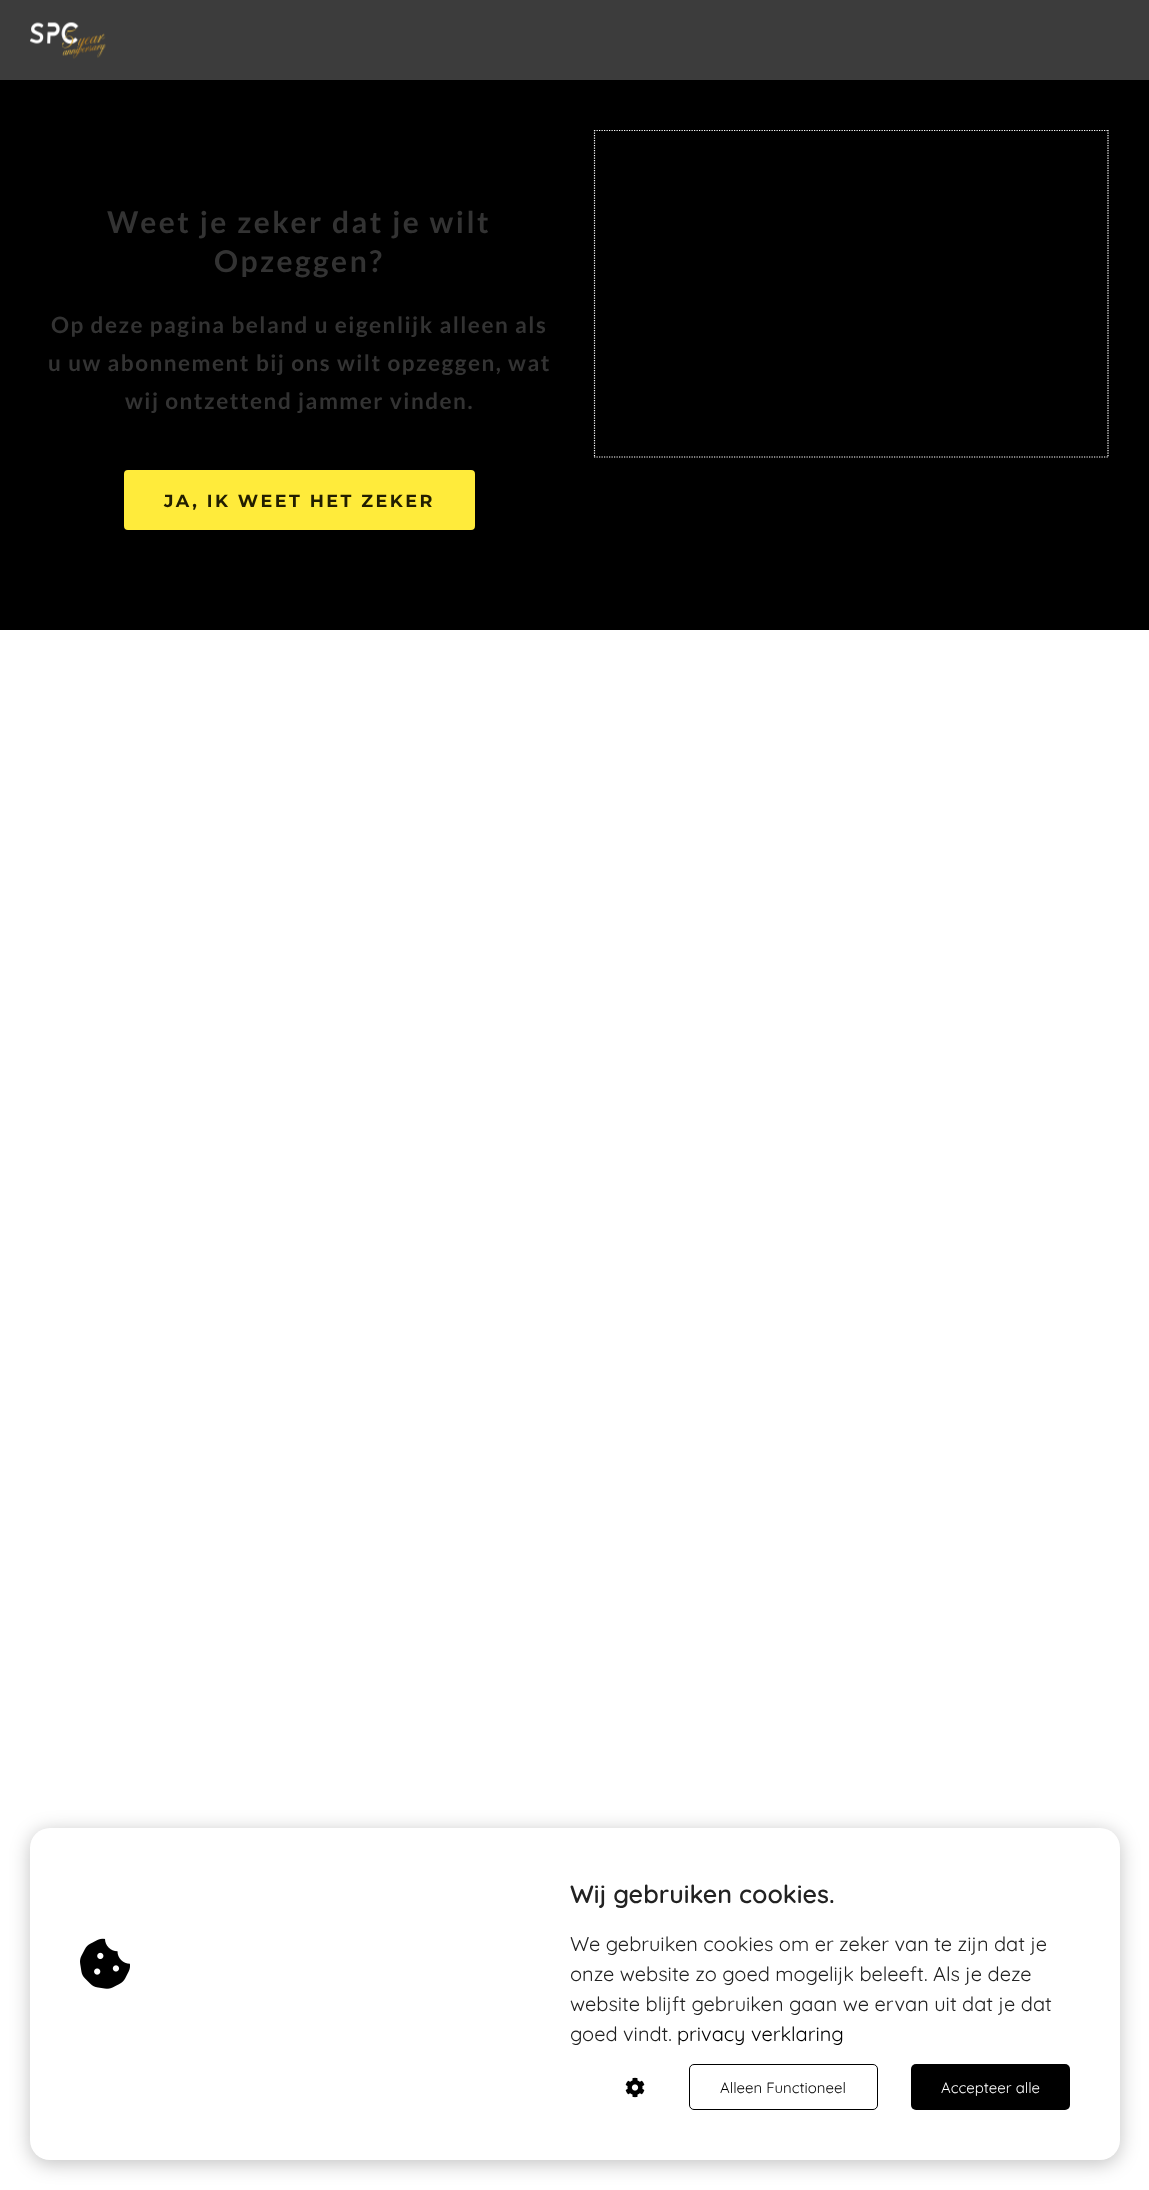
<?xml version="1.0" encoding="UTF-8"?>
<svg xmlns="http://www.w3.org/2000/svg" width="1149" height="2190">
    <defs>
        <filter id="blur1" x="-50%" y="-200%" width="200%" height="500%"><feGaussianBlur stdDeviation="9.5"/></filter>
    </defs>
    <rect width="100%" height="100%" fill="#FFFFFF"/>
    <rect x="0" y="0" width="1149" height="80" fill="#3C3C3C"/>
    <image x="30" y="22" width="76" height="37" href="img_01.png"/>
    <rect x="0" y="80" width="1149" height="550" fill="#000000"/>
    <text x="107" y="233" font-family="Lato" font-size="30" font-weight="700" letter-spacing="2.5" fill="#333333">Weet je zeker dat je wilt</text>
    <text x="214" y="272" font-family="Lato" font-size="30" font-weight="700" letter-spacing="2.5" fill="#333333">Opzeggen?</text>
    <text x="51" y="333" font-family="Lato" font-size="22.5" font-weight="700" letter-spacing="1.5" fill="#333333">Op deze pagina beland u eigenlijk alleen als</text>
    <text x="48" y="371" font-family="Lato" font-size="22.5" font-weight="700" letter-spacing="1.5" fill="#333333">u uw abonnement bij ons wilt opzeggen, wat</text>
    <text x="125" y="409" font-family="Lato" font-size="22.5" font-weight="700" letter-spacing="1.5" fill="#333333">wij ontzettend jammer vinden.</text>
    <rect x="125.5" y="471.5" width="348" height="57" rx="2.5" fill="#FFEB3B" stroke="#FFEB3B" stroke-width="3"/>
    <text x="164" y="507" font-family="Montserrat" font-size="17.5" font-weight="100" letter-spacing="2.5" fill="#221E00">JA, IK WEET HET ZEKER</text>
    <path d="M 594 130.5 H 1109" fill="none" stroke="#FFFFFF" stroke-width="1.2" stroke-dasharray="1.25 1.25"/>
    <path d="M 1108 130 V 457.5" fill="none" stroke="#FFFFFF" stroke-width="1.2" stroke-dasharray="1.25 1.25"/>
    <path d="M 594 457 H 1109" fill="none" stroke="#FFFFFF" stroke-width="1.2" stroke-dasharray="1.25 1.25"/>
    <path d="M 594.5 130 V 457.5" fill="none" stroke="#FFFFFF" stroke-width="1.2" stroke-dasharray="1.25 1.25"/>
    <rect x="30" y="1831" width="1090" height="333" rx="20" fill="#000000" fill-opacity="0.24" filter="url(#blur1)"/>
    <rect x="30" y="1828" width="1090" height="332" rx="20" fill="#FFFFFF"/>
    <image x="80" y="1938" width="50" height="51" href="img_02.png"/>
    <text x="570" y="1903" font-family="Quicksand" font-size="25" font-weight="600" fill="#222222">Wij gebruiken cookies.</text>
    <text font-family="Quicksand" font-size="20" fill="#222222">
        <tspan x="570" y="1951">We gebruiken cookies om er zeker van te zijn dat je</tspan>
        <tspan x="570" y="1981">onze website zo goed mogelijk beleeft. Als je deze</tspan>
        <tspan x="570" y="2011">website blijft gebruiken gaan we ervan uit dat je dat</tspan>
        <tspan x="570" y="2041">goed vindt.</tspan>
    </text>
    <text x="677" y="2041" font-family="Quicksand" font-size="20" fill="#000000">privacy verklaring</text>
    <image x="625" y="2077" width="20" height="21" href="img_03.png"/>
    <rect x="689.5" y="2064.5" width="188" height="45" rx="4.5" fill="none" stroke="#000000"/>
    <text x="720" y="2093" font-family="Quicksand" font-size="15" fill="#000000">Alleen Functioneel</text>
    <rect x="911" y="2064" width="159" height="46" rx="5" fill="#000000"/>
    <text x="941" y="2093" font-family="Quicksand" font-size="15" fill="#FFFFFF">Accepteer alle</text>
</svg>
